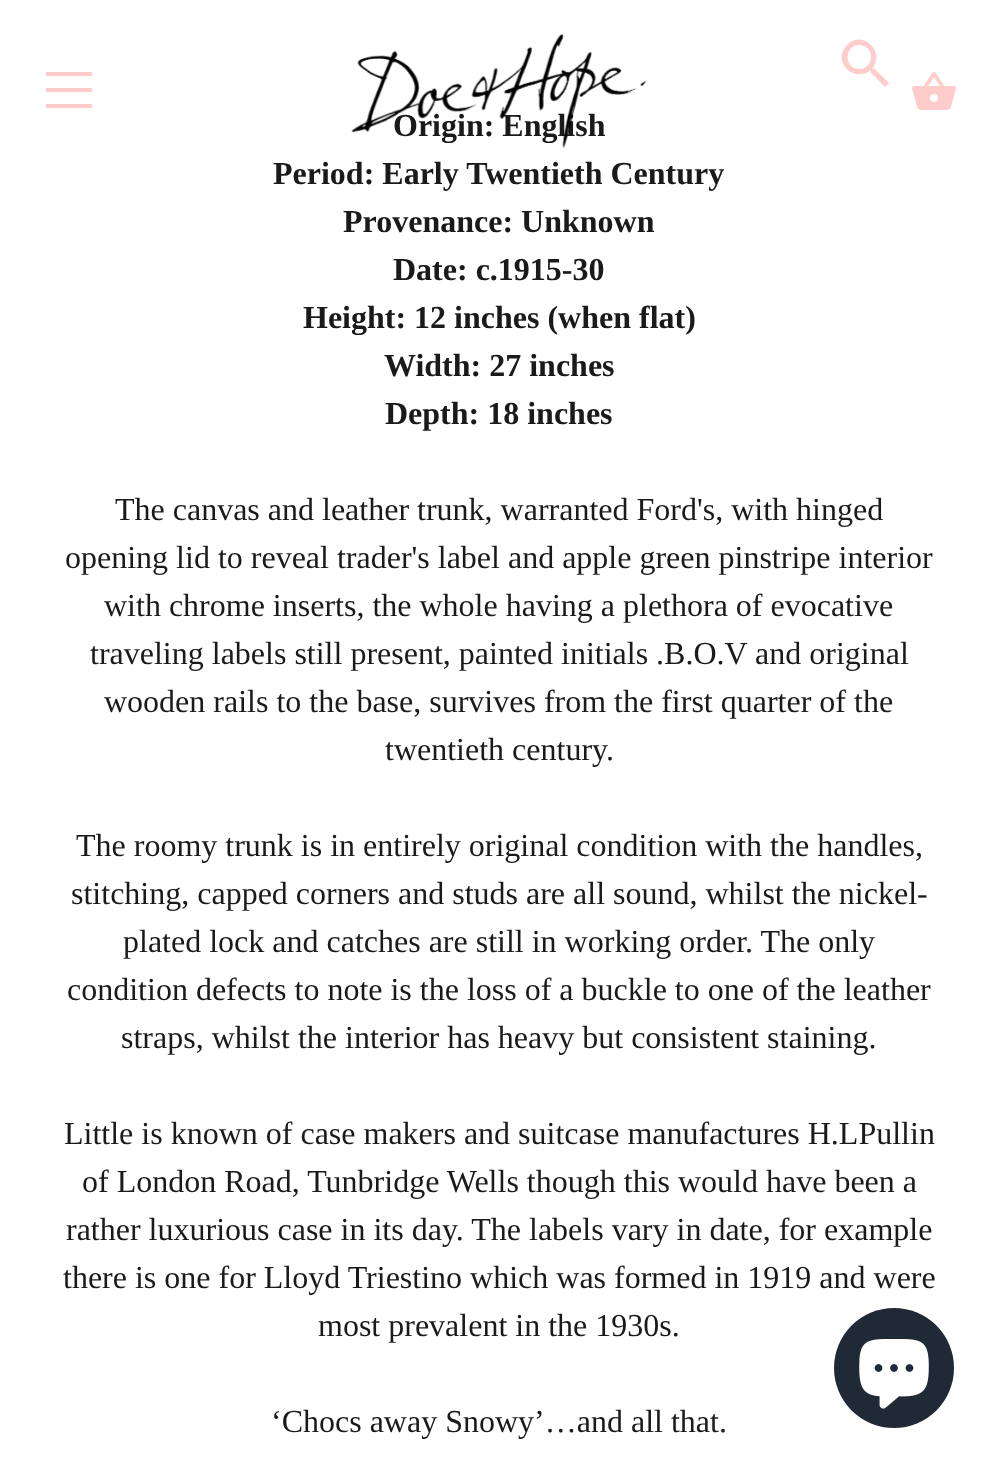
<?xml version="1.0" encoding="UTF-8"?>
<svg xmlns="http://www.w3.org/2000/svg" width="998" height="1469">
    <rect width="100%" height="100%" fill="#FFFFFF"/>
    <rect x="46" y="72" width="46" height="4" fill="#FFCCCC"/>
    <rect x="46" y="88" width="46" height="4" fill="#FFCCCC"/>
    <rect x="46" y="104" width="46" height="4" fill="#FFCCCC"/>
    <text x="393" y="136" font-family="Liberation Serif" font-size="32" font-weight="700" fill="#1A1A1A">Origin: English</text>
    <image x="351" y="34" width="295" height="114" href="img_01.png"/>
    <path d="M 875 69 H 873 H 872 C 886 52 863 29 847 45 C 831 61 854 84 871 70 V 71 V 73 L 885 87 L 889 83 Z M 859 69 C 844 69 844 45 859 45 C 875 45 875 69 859 69 Z" fill="#FFCCCC"/>
    <image x="912" y="72" width="44" height="38" href="img_02.png"/>
    <text x="273" y="184" font-family="Liberation Serif" font-size="32" font-weight="700" fill="#1A1A1A">Period: Early Twentieth Century</text>
    <text x="343" y="232" font-family="Liberation Serif" font-size="32" font-weight="700" fill="#1A1A1A">Provenance: Unknown</text>
    <text x="393" y="280" font-family="Liberation Serif" font-size="32" font-weight="700" fill="#1A1A1A">Date: c.1915-30</text>
    <text x="303" y="328" font-family="Liberation Serif" font-size="32" font-weight="700" fill="#1A1A1A">Height: 12 inches (when flat)</text>
    <text x="384" y="376" font-family="Liberation Serif" font-size="32" font-weight="700" fill="#1A1A1A">Width: 27 inches</text>
    <text x="385" y="424" font-family="Liberation Serif" font-size="32" font-weight="700" fill="#1A1A1A">Depth: 18 inches</text>
    <text x="115" y="520" font-family="Liberation Serif" font-size="32" fill="#1A1A1A">The canvas and leather trunk, warranted Ford's, with hinged</text>
    <text x="65" y="568" font-family="Liberation Serif" font-size="32" fill="#1A1A1A">opening lid to reveal trader's label and apple green pinstripe interior</text>
    <text x="104" y="616" font-family="Liberation Serif" font-size="32" fill="#1A1A1A">with chrome inserts, the whole having a plethora of evocative</text>
    <text x="90" y="664" font-family="Liberation Serif" font-size="32" fill="#1A1A1A">traveling labels still present, painted initials .B.O.V and original</text>
    <text x="104" y="712" font-family="Liberation Serif" font-size="32" fill="#1A1A1A">wooden rails to the base, survives from the first quarter of the</text>
    <text x="385" y="760" font-family="Liberation Serif" font-size="32" fill="#1A1A1A">twentieth century.</text>
    <text x="76" y="856" font-family="Liberation Serif" font-size="32" fill="#1A1A1A">The roomy trunk is in entirely original condition with the handles,</text>
    <text x="71" y="904" font-family="Liberation Serif" font-size="32" fill="#1A1A1A">stitching, capped corners and studs are all sound, whilst the nickel-</text>
    <text x="123" y="952" font-family="Liberation Serif" font-size="32" fill="#1A1A1A">plated lock and catches are still in working order. The only</text>
    <text x="67" y="1000" font-family="Liberation Serif" font-size="32" fill="#1A1A1A">condition defects to note is the loss of a buckle to one of the leather</text>
    <text x="121" y="1048" font-family="Liberation Serif" font-size="32" fill="#1A1A1A">straps, whilst the interior has heavy but consistent staining.</text>
    <text x="64" y="1144" font-family="Liberation Serif" font-size="32" fill="#1A1A1A">Little is known of case makers and suitcase manufactures H.LPullin</text>
    <text x="82" y="1192" font-family="Liberation Serif" font-size="32" fill="#1A1A1A">of London Road, Tunbridge Wells though this would have been a</text>
    <text x="66" y="1240" font-family="Liberation Serif" font-size="32" fill="#1A1A1A">rather luxurious case in its day. The labels vary in date, for example</text>
    <text x="63" y="1288" font-family="Liberation Serif" font-size="32" fill="#1A1A1A">there is one for Lloyd Triestino which was formed in 1919 and were</text>
    <text x="318" y="1336" font-family="Liberation Serif" font-size="32" fill="#1A1A1A">most prevalent in the 1930s.</text>
    <text x="271" y="1432" font-family="Liberation Serif" font-size="32" fill="#1A1A1A">‘Chocs away Snowy’…and all that.</text>
    <circle cx="894" cy="1368" r="60" fill="#202A36"/>
    <image x="859" y="1339" width="70" height="70" href="img_03.png"/>
</svg>
